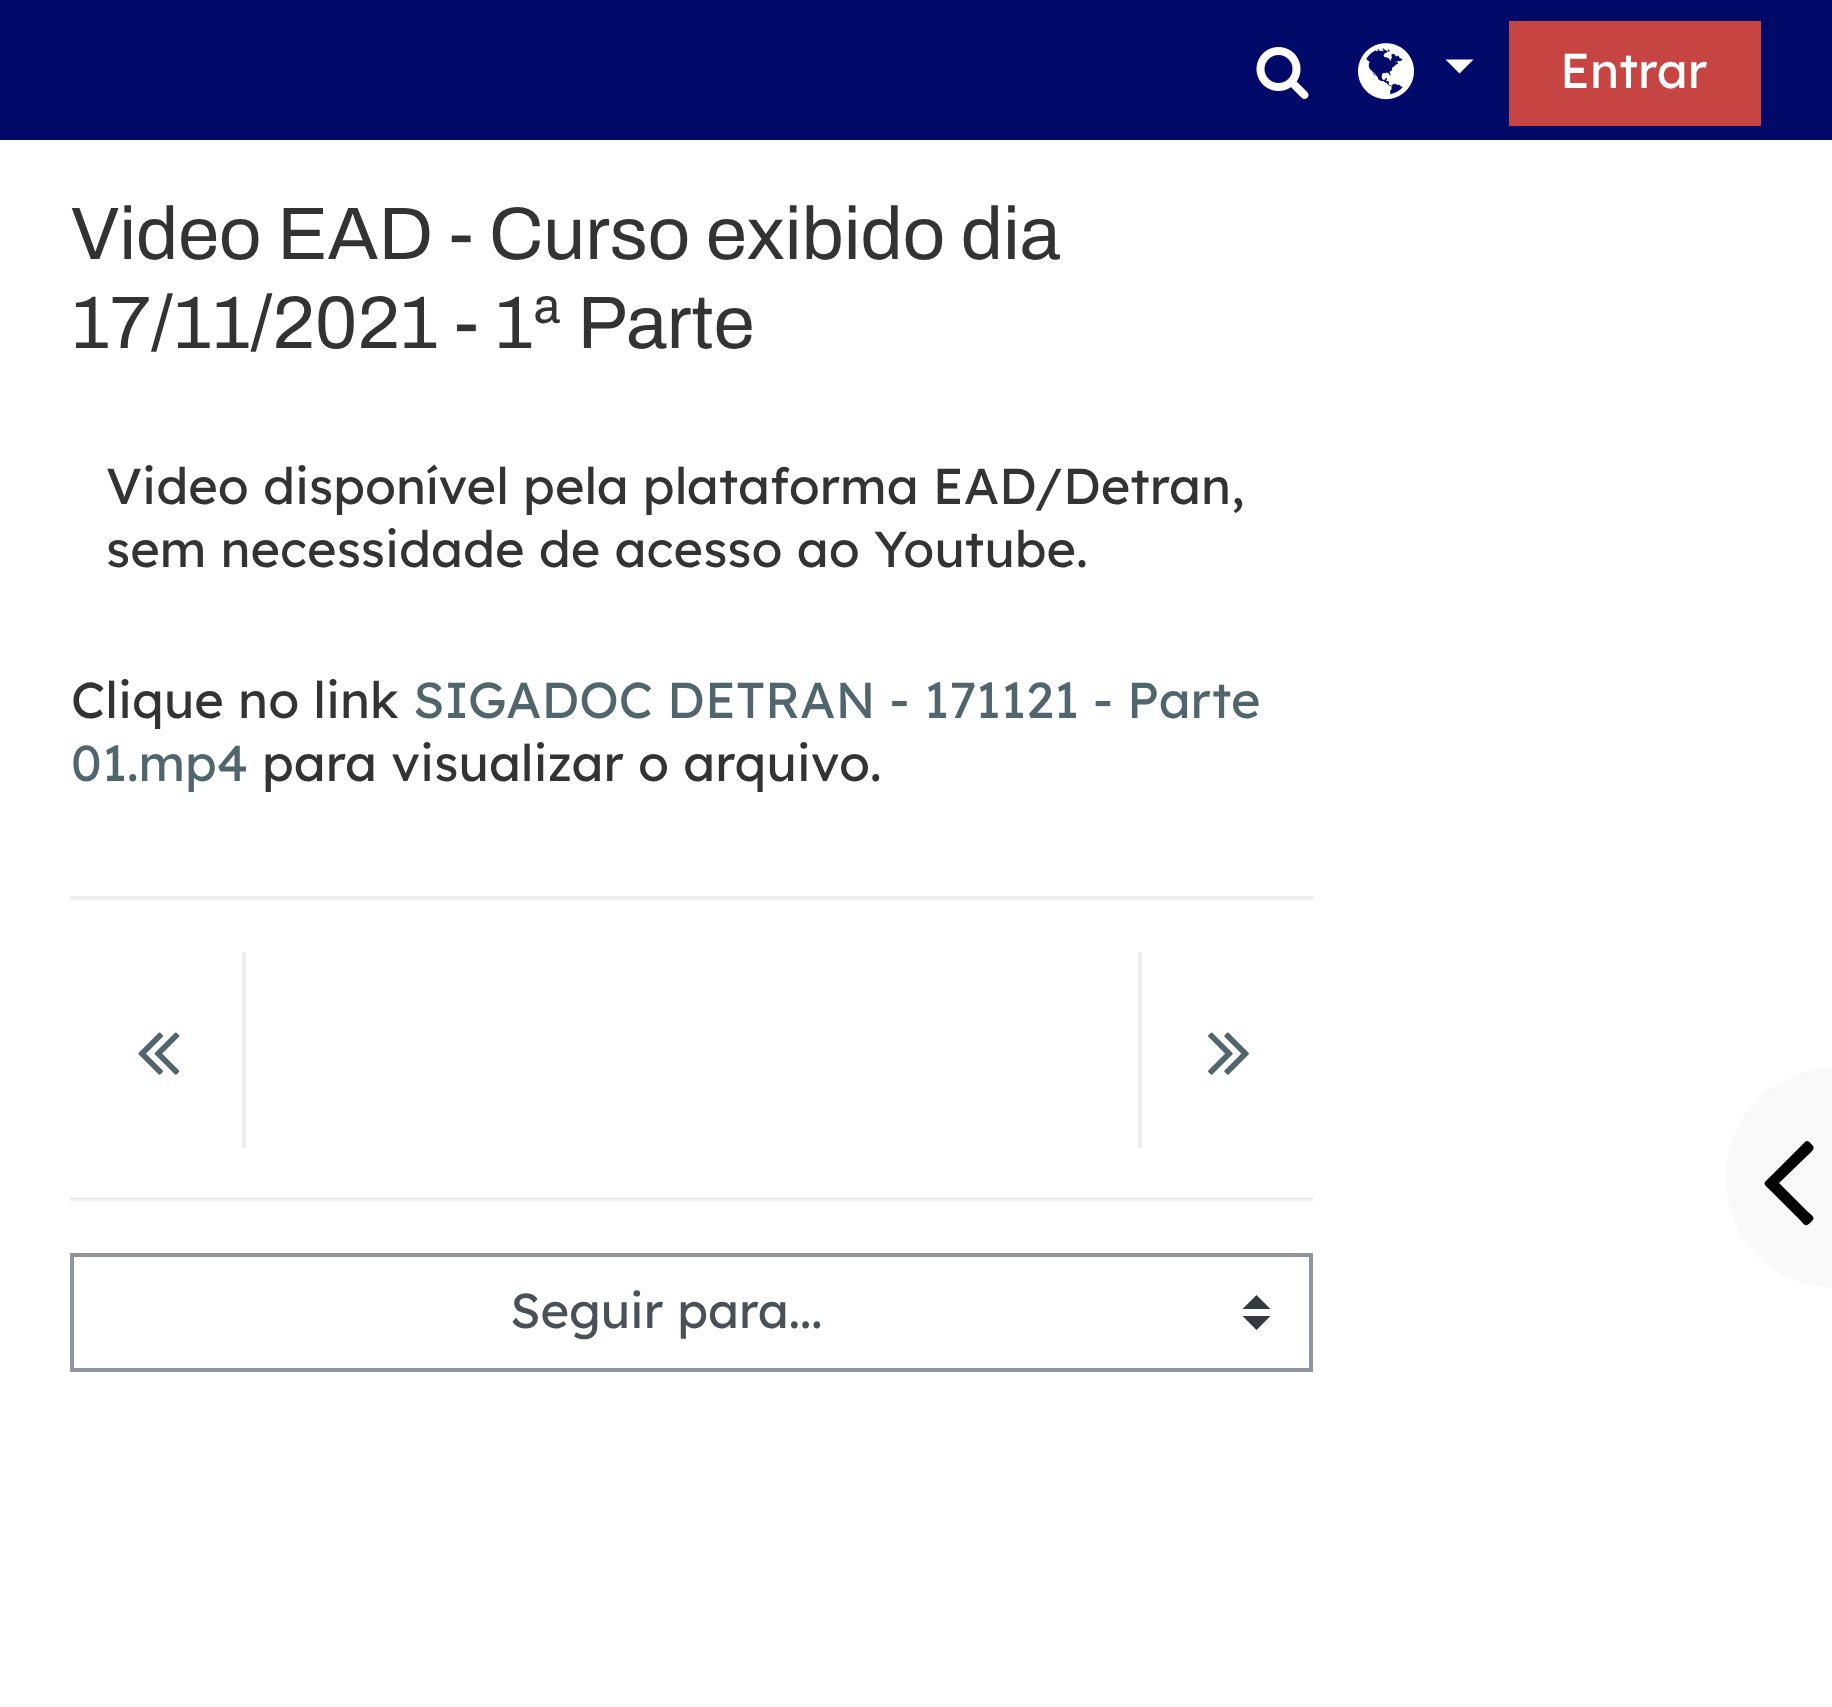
<?xml version="1.0" encoding="UTF-8"?>
<svg xmlns="http://www.w3.org/2000/svg" width="1832" height="1707">
    <rect width="100%" height="100%" fill="#FFFFFF"/>
    <rect x="0" y="0" width="1832" height="140" fill="#020A69"/>
    <image x="1256" y="47" width="53" height="52" href="img_01.png"/>
    <image x="1358" y="43" width="56" height="57" href="img_02.png"/>
    <path d="M 1445.5 59.5 H 1473.5 L 1459.5 73.5 Z" fill="#FFFFFF"/>
    <rect x="1509" y="21" width="252" height="105" fill="#C64543"/>
    <text x="1560" y="88" font-family="Lexend Deca" font-size="49" fill="#FFFFFF">Entrar</text>
    <text font-family="Archivo" font-size="74.5" fill="#333333">
        <tspan x="71" y="259">Video EAD - Curso exibido dia</tspan>
        <tspan x="71" y="348">17/11/2021 - 1ª Parte</tspan>
    </text>
    <text font-family="Lexend Deca" font-size="50.5" fill="#333333">
        <tspan x="106" y="504">Video disponível pela plataforma EAD/Detran,</tspan>
        <tspan x="106" y="567">sem necessidade de acesso ao Youtube.</tspan>
    </text>
    <text x="71" y="718" font-family="Lexend Deca" font-size="50.5" fill="#333333">Clique no link</text>
    <text x="413" y="718" font-family="Lexend Deca" font-size="50.5" fill="#51666C">SIGADOC DETRAN - 171121 - Parte</text>
    <text x="71" y="781" font-family="Lexend Deca" font-size="50.5" fill="#51666C">01.mp4</text>
    <text x="262" y="781" font-family="Lexend Deca" font-size="50.5" fill="#333333">para visualizar o arquivo.</text>
    <rect x="70" y="896" width="1243" height="4" fill="#EEEEEE"/>
    <rect x="70" y="1197" width="1243" height="4" fill="#EEEEEE"/>
    <rect x="242" y="952" width="4" height="196" fill="#EEEEEE"/>
    <image x="138" y="1032" width="42" height="43" href="img_03.png"/>
    <rect x="1138" y="952" width="4" height="196" fill="#EEEEEE"/>
    <image x="1208" y="1032" width="41" height="43" href="img_04.png"/>
    <path d="M 1256.5 1295 L 1242.5 1309 H 1270.5 Z M 1256.5 1330 L 1242.5 1316 H 1270.5 Z" fill="#343A40"/>
    <rect x="72" y="1255" width="1239" height="115" fill="none" stroke="#8F959E" stroke-width="4"/>
    <text x="510" y="1328" font-family="Lexend Deca" font-size="49" fill="#495057">Seguir para...</text>
    <path d="M 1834 1068 V 1288 C 1774.5 1288 1726 1239.5 1726 1180 V 1176 C 1726 1116.5 1774.5 1068 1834 1068 Z" fill="#F9F9F9"/>
    <path d="M 1813 1146 C 1816 1149 1808 1155 1807 1156 L 1779 1183 L 1807 1211 C 1811 1215 1816 1217 1812 1221 C 1805 1228 1806 1226 1798 1218 L 1772 1192 C 1762 1182 1762 1185 1772 1175 L 1805 1142 C 1808 1139 1811 1144 1813 1146 Z" fill="#000000"/>
</svg>
